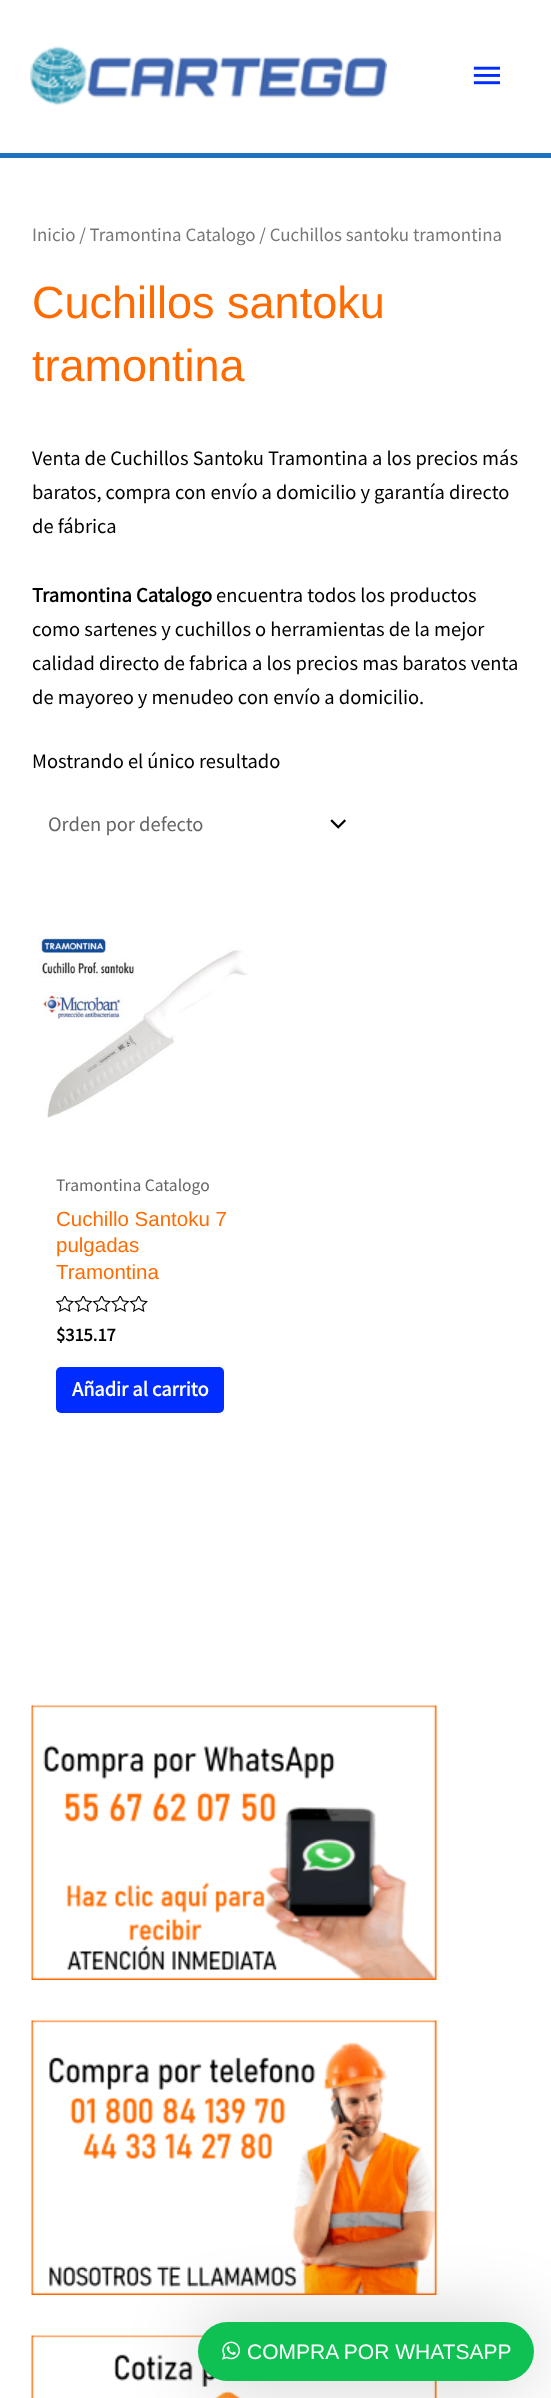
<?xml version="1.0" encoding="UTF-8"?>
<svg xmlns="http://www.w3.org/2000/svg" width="551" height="2398">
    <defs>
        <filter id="blur1" x="-50%" y="-200%" width="200%" height="500%"><feGaussianBlur stdDeviation="37.5"/></filter>
    </defs>
    <rect width="100%" height="100%" fill="#FFFFFF"/>
    <rect x="0" y="153" width="551" height="5" fill="#1E73BE"/>
    <image x="30" y="46" width="357" height="60" href="img_01.png"/>
    <image x="473" y="66" width="28" height="19" href="img_02.png"/>
    <text x="32" y="241" font-family="Source Sans Pro" font-size="18.9" fill="#777777">Inicio / Tramontina Catalogo / Cuchillos santoku tramontina</text>
    <text font-family="Liberation Sans" font-size="45" fill="#FF6B01">
        <tspan x="32" y="318">Cuchillos santoku</tspan>
        <tspan x="32" y="381">tramontina</tspan>
    </text>
    <text font-family="Source Sans Pro" font-size="20.5" fill="#000000">
        <tspan x="32" y="465">Venta de Cuchillos Santoku Tramontina a los precios más</tspan>
        <tspan x="32" y="499">baratos, compra con envío a domicilio y garantía directo</tspan>
        <tspan x="32" y="533">de fábrica</tspan>
    </text>
    <text x="32" y="602" font-family="Source Sans Pro" font-size="20.5" font-weight="700" fill="#000000">Tramontina Catalogo</text>
    <text x="216" y="602" font-family="Source Sans Pro" font-size="20.5" fill="#000000">encuentra todos los productos</text>
    <text font-family="Source Sans Pro" font-size="20.5" fill="#000000">
        <tspan x="32" y="636">como sartenes y cuchillos o herramientas de la mejor</tspan>
        <tspan x="32" y="670">calidad directo de fabrica a los precios mas baratos venta</tspan>
        <tspan x="32" y="704">de mayoreo y menudeo con envío a domicilio.</tspan>
    </text>
    <text x="32" y="768" font-family="Source Sans Pro" font-size="20.5" fill="#000000">Mostrando el único resultado</text>
    <image x="330" y="819" width="16" height="10" href="img_03.png"/>
    <text x="48" y="831" font-family="Source Sans Pro" font-size="20.5" fill="#666666">Orden por defecto</text>
    <image x="38" y="935" width="210" height="183" href="img_04.png"/>
    <text x="56" y="1191" font-family="Source Sans Pro" font-size="17.5" fill="#666666">Tramontina Catalogo</text>
    <text font-family="Liberation Sans" font-size="20.5" fill="#FF6B01">
        <tspan x="56" y="1226">Cuchillo Santoku 7</tspan>
        <tspan x="56" y="1252">pulgadas</tspan>
        <tspan x="56" y="1279">Tramontina</tspan>
    </text>
    <image x="56" y="1296" width="92" height="16" href="img_05.png"/>
    <text x="56" y="1341" font-family="Source Sans Pro" font-size="18.5" font-weight="700" fill="#000000">$315.17</text>
    <rect x="56" y="1367" width="168" height="46" rx="5" fill="#002CFF"/>
    <text x="72" y="1396" font-family="Source Sans Pro" font-size="20.5" font-weight="700" fill="#FFFFFF">Añadir al carrito</text>
    <image x="31" y="1705" width="406" height="275" href="img_06.png"/>
    <image x="31" y="2020" width="406" height="275" href="img_07.png"/>
    <image x="31" y="2335" width="406" height="63" href="img_08.png"/>
    <rect x="198" y="2322" width="336" height="59" rx="29.5" fill="#000000" fill-opacity="0.2" filter="url(#blur1)"/>
    <rect x="198" y="2322" width="336" height="59" rx="29.5" fill="#0FC153"/>
    <image x="222" y="2341" width="18" height="19" href="img_09.png"/>
    <text x="247" y="2359" font-family="Liberation Sans" font-size="21" fill="#FFFFFF">COMPRA POR WHATSAPP</text>
</svg>
